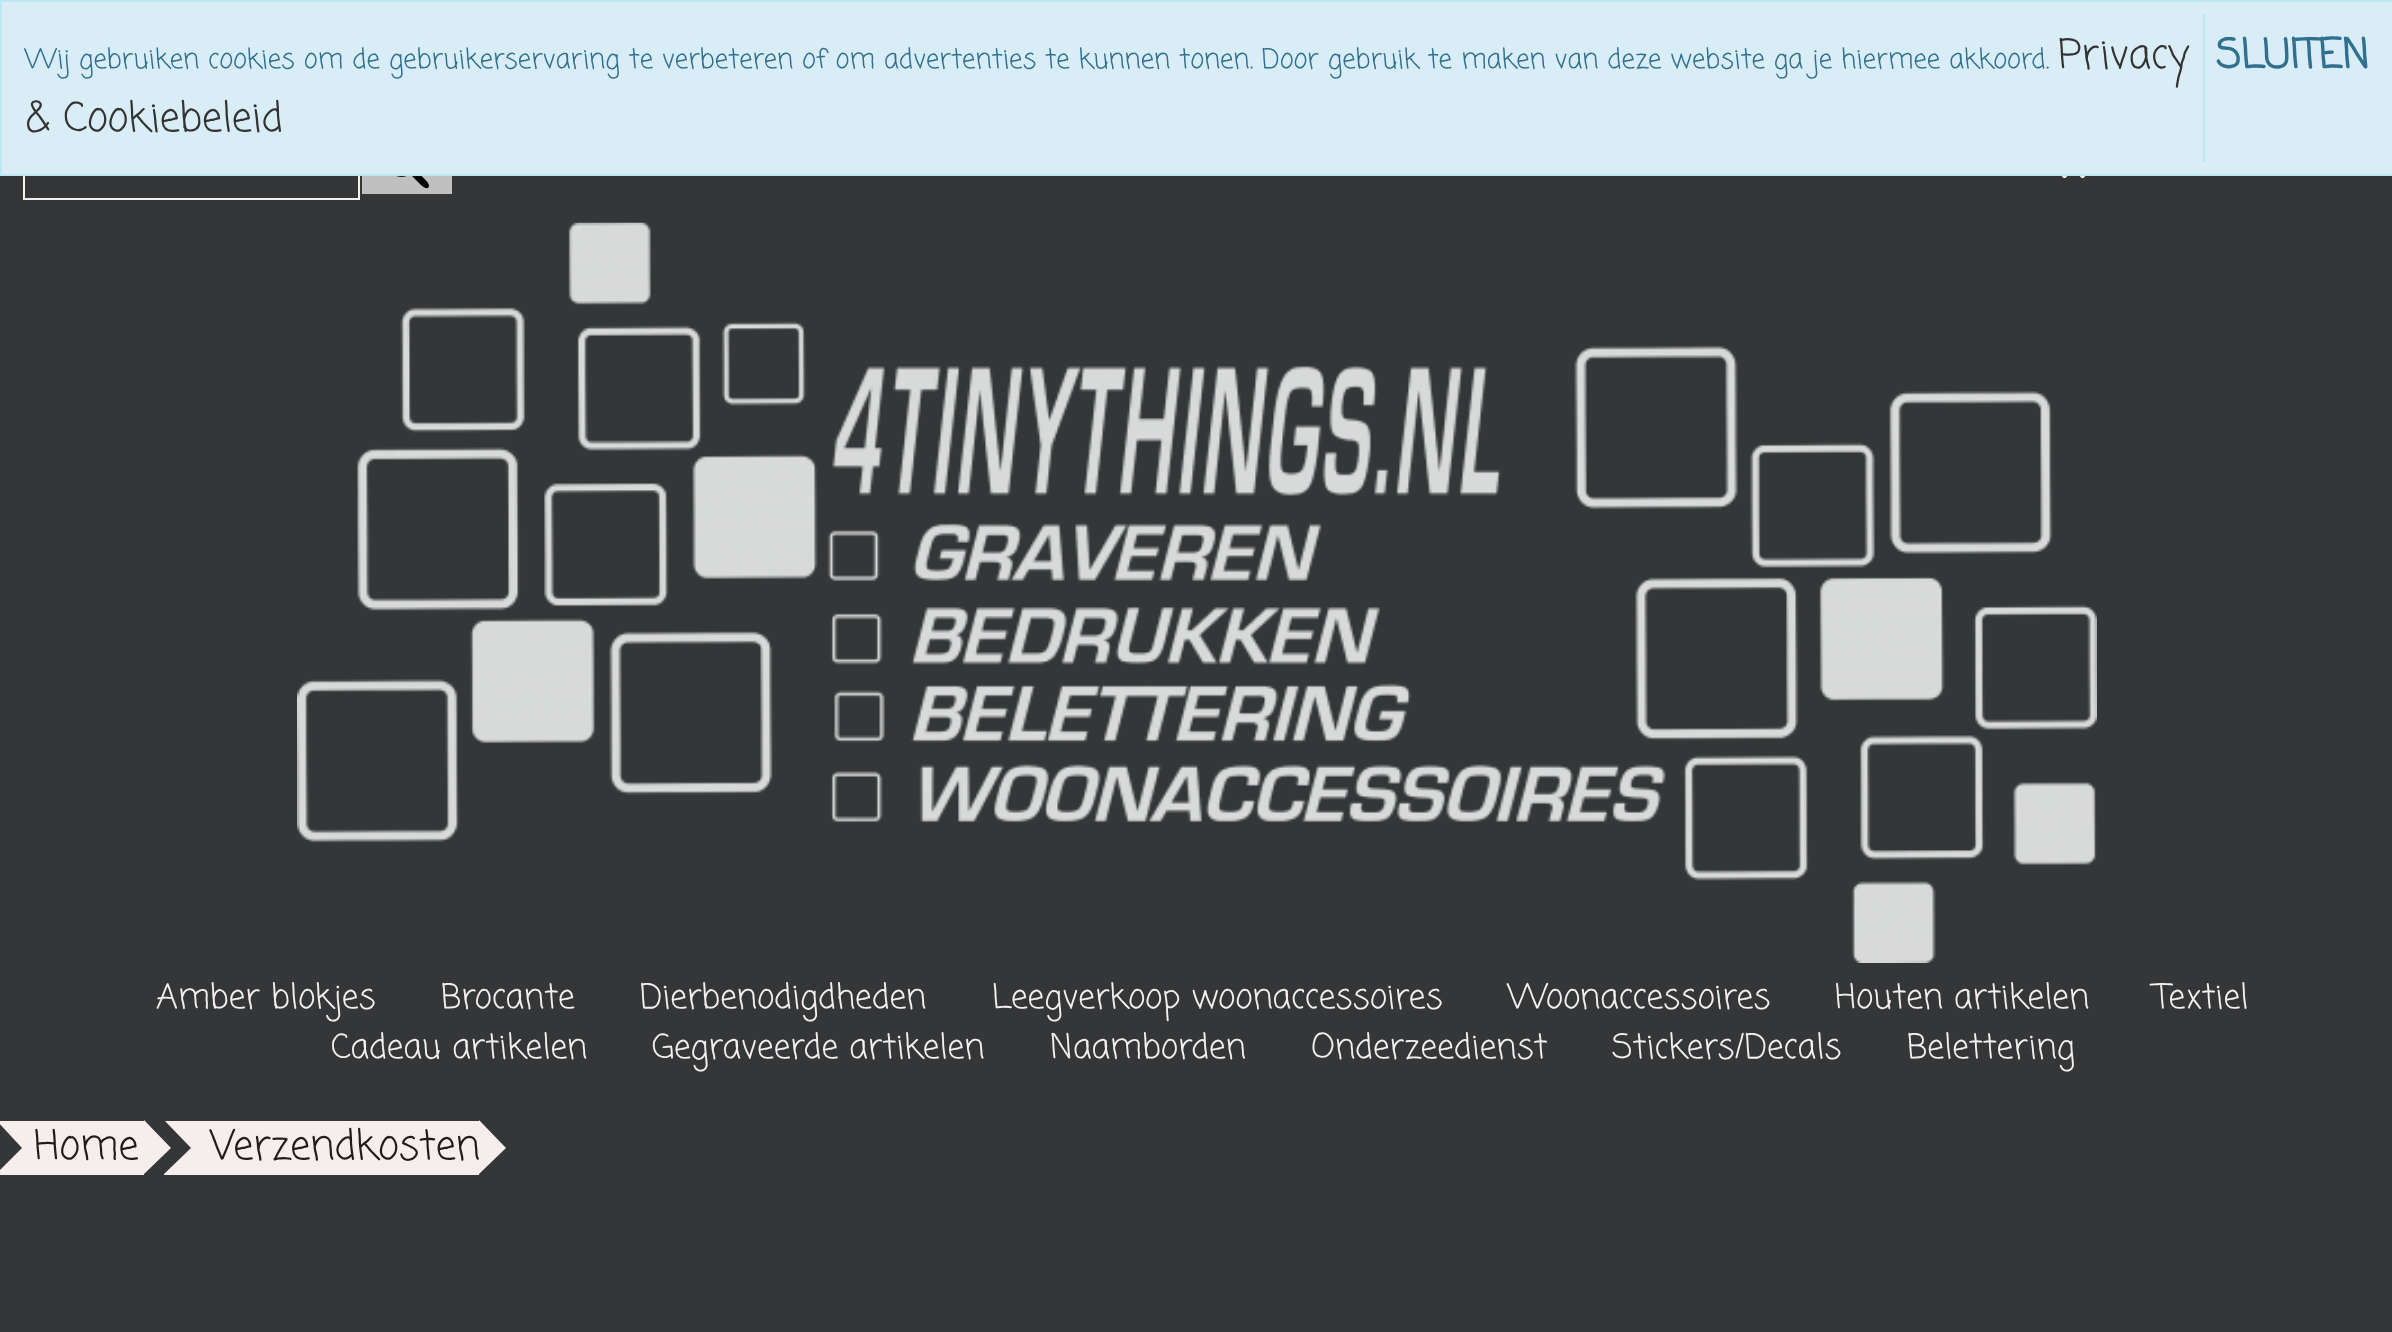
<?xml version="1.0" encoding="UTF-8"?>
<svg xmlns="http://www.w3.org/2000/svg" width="2392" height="1332">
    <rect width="100%" height="100%" fill="#343638"/>
    <rect x="24" y="134" width="335" height="65" fill="none" stroke="#F2F2EB" stroke-width="2"/>
    <rect x="1" y="1" width="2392" height="174" fill="#D9EDF7" stroke="#BCE8F1" stroke-width="2"/>
    <text x="25" y="68" font-family="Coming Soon" font-size="27" fill="#31708F">Wij gebruiken cookies om de gebruikerservaring te verbeteren of om advertenties te kunnen tonen. Door gebruik te maken van deze website ga je hiermee akkoord.</text>
    <text x="2058" y="68" font-family="Coming Soon" font-size="40.5" fill="#333333">Privacy</text>
    <text x="25" y="131" font-family="Coming Soon" font-size="40.5" fill="#333333">&amp; Cookiebeleid</text>
    <rect x="2203" y="14" width="2" height="148" fill="#BCE8F1"/>
    <text x="2216" y="68" font-family="Coming Soon" font-size="40.5" font-weight="700" fill="#31708F">SLUITEN</text>
    <rect x="362" y="176" width="90" height="18" fill="#C0C0C0"/>
    <image x="396" y="176" width="33" height="13" href="img_01.png"/>
    <image x="2062" y="176" width="23" height="3" href="img_02.png"/>
    <image x="297" y="222" width="1800" height="741" href="img_03.png"/>
    <text x="156" y="1008" font-family="Coming Soon" font-size="33.75" fill="#F3EFEF">Amber blokjes</text>
    <text x="441" y="1008" font-family="Coming Soon" font-size="33.75" fill="#F3EFEF">Brocante</text>
    <text x="640" y="1008" font-family="Coming Soon" font-size="33.75" fill="#F3EFEF">Dierbenodigdheden</text>
    <text x="992" y="1008" font-family="Coming Soon" font-size="33.75" fill="#F3EFEF">Leegverkoop woonaccessoires</text>
    <text x="1508" y="1008" font-family="Coming Soon" font-size="33.75" fill="#F3EFEF">Woonaccessoires</text>
    <text x="1835" y="1008" font-family="Coming Soon" font-size="33.75" fill="#F3EFEF">Houten artikelen</text>
    <text x="2154" y="1008" font-family="Coming Soon" font-size="33.75" fill="#F3EFEF">Textiel</text>
    <text x="331" y="1058" font-family="Coming Soon" font-size="33.75" fill="#F3EFEF">Cadeau artikelen</text>
    <text x="652" y="1058" font-family="Coming Soon" font-size="33.75" fill="#F3EFEF">Gegraveerde artikelen</text>
    <text x="1050" y="1058" font-family="Coming Soon" font-size="33.75" fill="#F3EFEF">Naamborden</text>
    <text x="1311" y="1058" font-family="Coming Soon" font-size="33.75" fill="#F3EFEF">Onderzeedienst</text>
    <text x="1612" y="1058" font-family="Coming Soon" font-size="33.75" fill="#F3EFEF">Stickers/Decals</text>
    <text x="1907" y="1058" font-family="Coming Soon" font-size="33.75" fill="#F3EFEF">Belettering</text>
    <rect x="0" y="1121" width="144" height="54" fill="#F6EDED"/>
    <path d="M -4 1174 V 1120 L 22 1148 Z" fill="#343638"/>
    <text x="34" y="1159" font-family="Coming Soon" font-size="40.5" fill="#221B1B">Home</text>
    <rect x="164" y="1121" width="315" height="54" fill="#F6EDED"/>
    <path d="M 164 1174 V 1120 L 191 1148 Z" fill="#343638"/>
    <path d="M 144 1174 V 1120 L 171 1148 Z" fill="#F6EDED"/>
    <text x="210" y="1159" font-family="Coming Soon" font-size="40.5" fill="#221B1B">Verzendkosten</text>
    <path d="M 479 1174 V 1120 L 506 1148 Z" fill="#F6EDED"/>
</svg>
